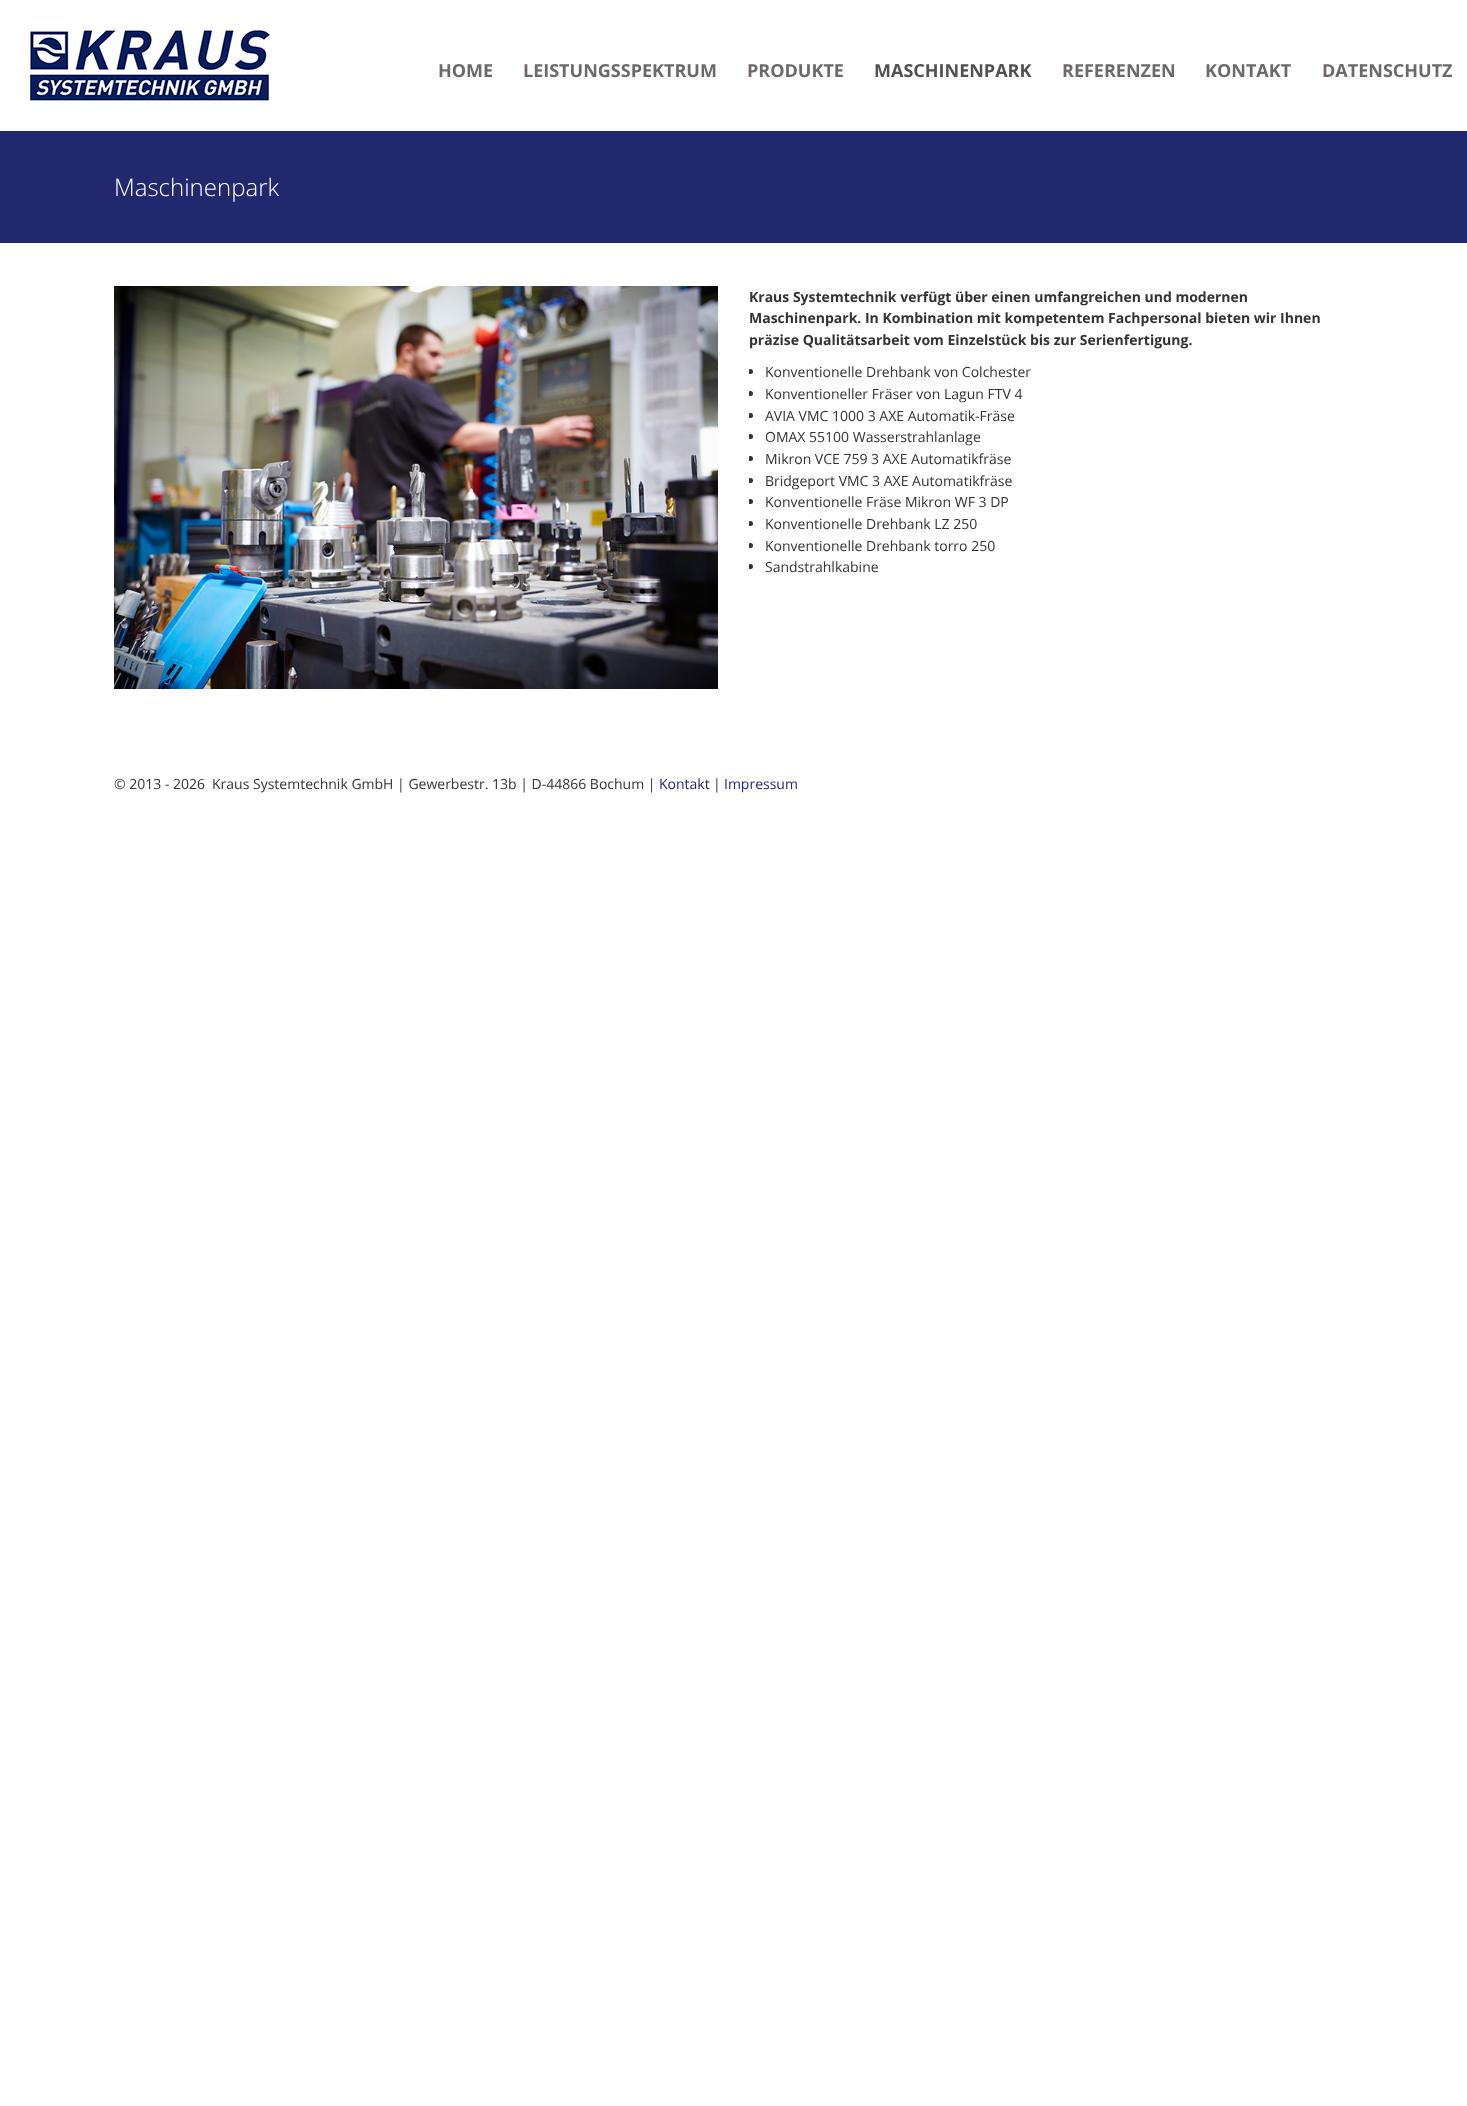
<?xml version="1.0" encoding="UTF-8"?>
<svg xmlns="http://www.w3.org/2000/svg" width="1467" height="2106">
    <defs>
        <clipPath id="clip1"><rect x="749" y="286" width="605" height="367"/></clipPath>
    </defs>
    <rect width="100%" height="100%" fill="#FFFFFF"/>
    <image x="30" y="30" width="240" height="71" href="img_01.png"/>
    <text x="438" y="77" font-family="Open Sans" font-size="18" font-weight="700" fill="#6E686B">HOME</text>
    <text x="523" y="77" font-family="Open Sans" font-size="18" font-weight="700" fill="#6E686B">LEISTUNGSSPEKTRUM</text>
    <text x="747" y="77" font-family="Open Sans" font-size="18" font-weight="700" fill="#6E686B">PRODUKTE</text>
    <text x="874" y="77" font-family="Open Sans" font-size="18" font-weight="700" fill="#544F52">MASCHINENPARK</text>
    <text x="1062" y="77" font-family="Open Sans" font-size="18" font-weight="700" fill="#6E686B">REFERENZEN</text>
    <text x="1205" y="77" font-family="Open Sans" font-size="18" font-weight="700" fill="#6E686B">KONTAKT</text>
    <text x="1322" y="77" font-family="Open Sans" font-size="18" font-weight="700" fill="#6E686B">DATENSCHUTZ</text>
    <rect x="0" y="131" width="1467" height="112" fill="#22286E"/>
    <text x="114" y="196" font-family="Open Sans" font-size="24" font-weight="300" fill="#FFFFFF">Maschinenpark</text>
    <image x="114" y="286" width="604" height="403" href="img_02.png"/>
    <text font-family="Open Sans" font-size="14" font-weight="700" fill="#333333">
        <tspan x="749" y="302">Kraus Systemtechnik verfügt über einen umfangreichen und modernen</tspan>
        <tspan x="749" y="323">Maschinenpark. In Kombination mit kompetentem Fachpersonal bieten wir Ihnen</tspan>
        <tspan x="749" y="345">präzise Qualitätsarbeit vom Einzelstück bis zur Serienfertigung.</tspan>
    </text>
    <g clip-path="url(#clip1)">
        <circle cx="750.5" cy="371.5" r="2.5" fill="#333333"/>
    </g>
    <text x="765" y="377" font-family="Open Sans" font-size="14" fill="#333333">Konventionelle Drehbank von Colchester</text>
    <g clip-path="url(#clip1)">
        <circle cx="750.5" cy="393.5" r="2.5" fill="#333333"/>
    </g>
    <text x="765" y="399" font-family="Open Sans" font-size="14" fill="#333333">Konventioneller Fräser von Lagun FTV 4</text>
    <g clip-path="url(#clip1)">
        <circle cx="750.5" cy="415.5" r="2.5" fill="#333333"/>
    </g>
    <text x="765" y="421" font-family="Open Sans" font-size="14" fill="#333333">AVIA VMC 1000 3 AXE Automatik-Fräse</text>
    <g clip-path="url(#clip1)">
        <circle cx="750.5" cy="436.5" r="2.5" fill="#333333"/>
    </g>
    <text x="765" y="442" font-family="Open Sans" font-size="14" fill="#333333">OMAX 55100 Wasserstrahlanlage</text>
    <g clip-path="url(#clip1)">
        <circle cx="750.5" cy="458.5" r="2.5" fill="#333333"/>
    </g>
    <text x="765" y="464" font-family="Open Sans" font-size="14" fill="#333333">Mikron VCE 759 3 AXE Automatikfräse</text>
    <g clip-path="url(#clip1)">
        <circle cx="750.5" cy="480.5" r="2.5" fill="#333333"/>
    </g>
    <text x="765" y="486" font-family="Open Sans" font-size="14" fill="#333333">Bridgeport VMC 3 AXE Automatikfräse</text>
    <g clip-path="url(#clip1)">
        <circle cx="750.5" cy="501.5" r="2.5" fill="#333333"/>
    </g>
    <text x="765" y="507" font-family="Open Sans" font-size="14" fill="#333333">Konventionelle Fräse Mikron WF 3 DP</text>
    <g clip-path="url(#clip1)">
        <circle cx="750.5" cy="523.5" r="2.5" fill="#333333"/>
    </g>
    <text x="765" y="529" font-family="Open Sans" font-size="14" fill="#333333">Konventionelle Drehbank LZ 250</text>
    <g clip-path="url(#clip1)">
        <circle cx="750.5" cy="545.5" r="2.5" fill="#333333"/>
    </g>
    <text x="765" y="551" font-family="Open Sans" font-size="14" fill="#333333">Konventionelle Drehbank torro 250</text>
    <g clip-path="url(#clip1)">
        <circle cx="750.5" cy="566.5" r="2.5" fill="#333333"/>
    </g>
    <text x="765" y="572" font-family="Open Sans" font-size="14" fill="#333333">Sandstrahlkabine</text>
    <text x="114" y="789" font-family="Open Sans" font-size="14" fill="#333333">© 2013 - 2026</text>
    <text x="212" y="789" font-family="Open Sans" font-size="14" fill="#333333">Kraus Systemtechnik GmbH | Gewerbestr. 13b | D-44866 Bochum |</text>
    <text x="659" y="789" font-family="Open Sans" font-size="14" fill="#22286E">Kontakt</text>
    <text x="713" y="789" font-family="Open Sans" font-size="14" fill="#333333">|</text>
    <text x="724" y="789" font-family="Open Sans" font-size="14" fill="#22286E">Impressum</text>
</svg>
